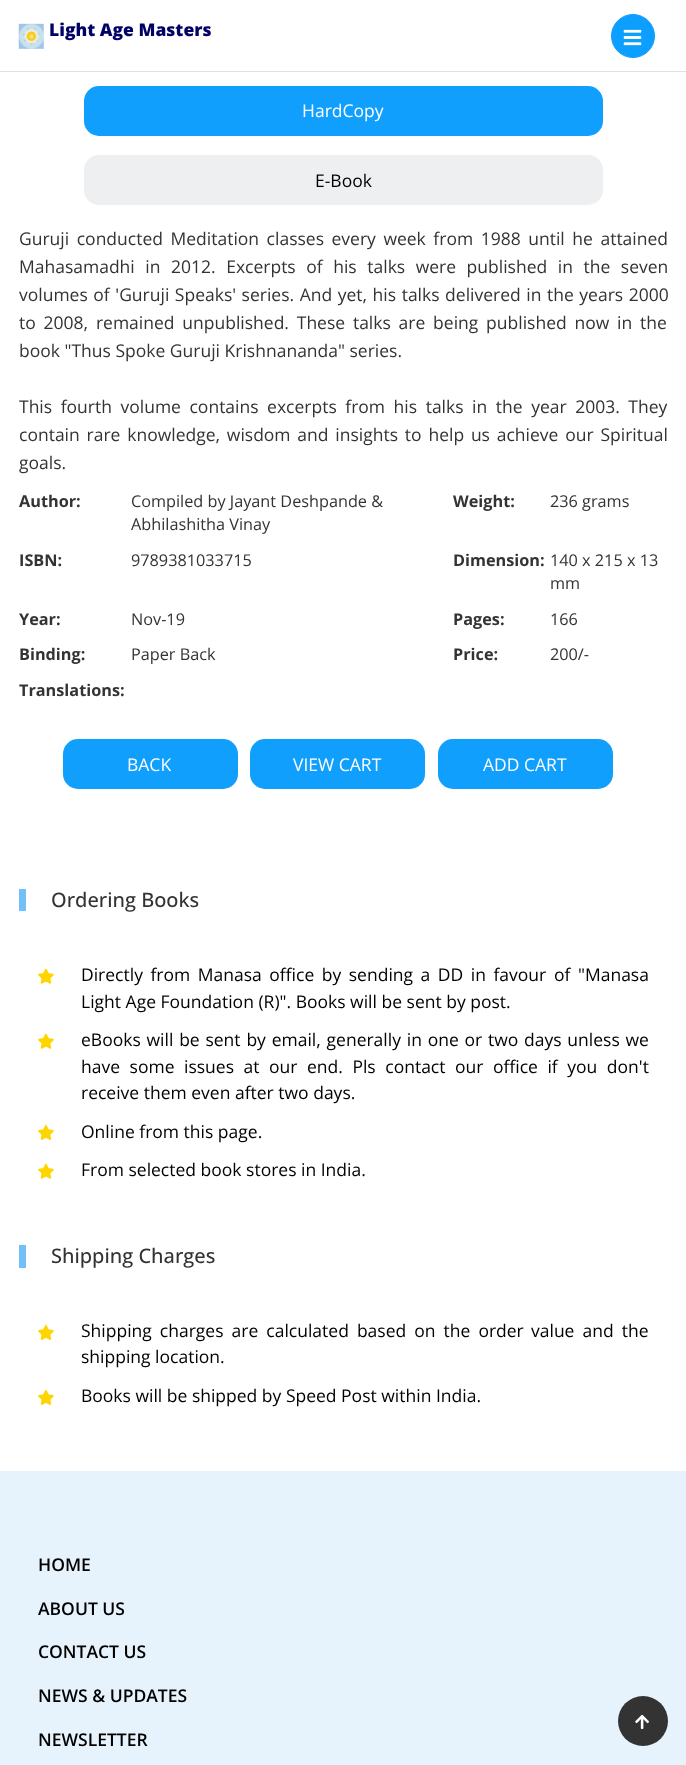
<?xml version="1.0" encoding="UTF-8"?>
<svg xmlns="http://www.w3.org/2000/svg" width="686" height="1765">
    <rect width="100%" height="100%" fill="#FFFFFF"/>
    <rect x="0" y="71" width="686" height="1" fill="#E0E0E0"/>
    <image x="18" y="23" width="26" height="26" href="img_01.png"/>
    <text x="49" y="36" font-family="Open Sans" font-size="17.5" font-weight="800" fill="#000365">Light Age Masters</text>
    <circle cx="633" cy="36" r="21.5" fill="#0D9FFF" stroke="#0D9FFF"/>
    <image x="623" y="29" width="19" height="17" href="img_02.png"/>
    <rect x="84" y="86" width="519" height="50" rx="15" fill="#119FFE"/>
    <text x="302" y="117" font-family="Open Sans" font-size="17.5" fill="#FFFFFF">HardCopy</text>
    <rect x="84" y="155" width="519" height="50" rx="15" fill="#EEEFF0"/>
    <text x="315" y="187" font-family="Open Sans" font-size="17.5" fill="#000000">E-Book</text>
    <text font-family="Open Sans" font-size="17.5" fill="#333333">
        <tspan x="19" y="245" word-spacing="3">Guruji conducted Meditation classes every week from 1988 until he attained</tspan>
        <tspan x="19" y="273" word-spacing="6">Mahasamadhi in 2012. Excerpts of his talks were published in the seven</tspan>
        <tspan x="19" y="301" word-spacing="1">volumes of 'Guruji Speaks' series. And yet, his talks delivered in the years 2000</tspan>
        <tspan x="19" y="329" word-spacing="3.25">to 2008, remained unpublished. These talks are being published now in the</tspan>
        <tspan x="19" y="357">book "Thus Spoke Guruji Krishnananda" series.</tspan>
    </text>
    <text font-family="Open Sans" font-size="17.5" fill="#333333">
        <tspan x="19" y="413" word-spacing="4">This fourth volume contains excerpts from his talks in the year 2003. They</tspan>
        <tspan x="19" y="441" word-spacing="2.25">contain rare knowledge, wisdom and insights to help us achieve our Spiritual</tspan>
        <tspan x="19" y="469">goals.</tspan>
    </text>
    <text x="19" y="507" font-family="Open Sans" font-size="16.25" font-weight="700" fill="#333333">Author:</text>
    <text font-family="Open Sans" font-size="16.25" fill="#333333">
        <tspan x="131" y="507">Compiled by Jayant Deshpande &amp;</tspan>
        <tspan x="131" y="530">Abhilashitha Vinay</tspan>
    </text>
    <text x="453" y="507" font-family="Open Sans" font-size="16.25" font-weight="700" fill="#333333">Weight:</text>
    <text x="550" y="507" font-family="Open Sans" font-size="16.25" fill="#333333">236 grams</text>
    <text x="19" y="566" font-family="Open Sans" font-size="16.25" font-weight="700" fill="#333333">ISBN:</text>
    <text x="131" y="566" font-family="Open Sans" font-size="16.25" fill="#333333">9789381033715</text>
    <text x="453" y="566" font-family="Open Sans" font-size="16.25" font-weight="700" fill="#333333">Dimension:</text>
    <text font-family="Open Sans" font-size="16.25" fill="#333333">
        <tspan x="550" y="566">140 x 215 x 13</tspan>
        <tspan x="550" y="589">mm</tspan>
    </text>
    <text x="19" y="625" font-family="Open Sans" font-size="16.25" font-weight="700" fill="#333333">Year:</text>
    <text x="131" y="625" font-family="Open Sans" font-size="16.25" fill="#333333">Nov-19</text>
    <text x="453" y="625" font-family="Open Sans" font-size="16.25" font-weight="700" fill="#333333">Pages:</text>
    <text x="550" y="625" font-family="Open Sans" font-size="16.25" fill="#333333">166</text>
    <text x="19" y="660" font-family="Open Sans" font-size="16.25" font-weight="700" fill="#333333">Binding:</text>
    <text x="131" y="660" font-family="Open Sans" font-size="16.25" fill="#333333">Paper Back</text>
    <text x="453" y="660" font-family="Open Sans" font-size="16.25" font-weight="700" fill="#333333">Price:</text>
    <text x="550" y="660" font-family="Open Sans" font-size="16.25" fill="#333333">200/-</text>
    <text x="19" y="696" font-family="Open Sans" font-size="16.25" font-weight="700" fill="#333333">Translations:</text>
    <rect x="63" y="739" width="175" height="50" rx="15" fill="#119FFE"/>
    <text x="127" y="771" font-family="Open Sans" font-size="17.5" fill="#FFFFFF">BACK</text>
    <rect x="250" y="739" width="175" height="50" rx="15" fill="#119FFE"/>
    <text x="293" y="771" font-family="Open Sans" font-size="17.5" fill="#FFFFFF">VIEW CART</text>
    <rect x="438" y="739" width="175" height="50" rx="15" fill="#119FFE"/>
    <text x="483" y="771" font-family="Open Sans" font-size="17.5" fill="#FFFFFF">ADD CART</text>
    <rect x="19" y="889" width="7" height="22" fill="#73BFF9"/>
    <text x="51" y="907" font-family="Open Sans" font-size="20" font-weight="500" fill="#333333">Ordering Books</text>
    <image x="38" y="968" width="16" height="16" href="img_03.png"/>
    <text x="81" y="981" word-spacing="3" font-family="Open Sans" font-size="17.5" fill="#000000">Directly from Manasa office by sending a DD in favour</text>
    <text x="554" y="981" word-spacing="3" font-family="Open Sans" font-size="17.5" fill="#000000">of "Manasa</text>
    <text x="81" y="1008" font-family="Open Sans" font-size="17.5" fill="#000000">Light Age Foundation (R)". Books will be sent by post.</text>
    <image x="38" y="1033" width="16" height="16" href="img_03.png"/>
    <text x="81" y="1046" word-spacing="1.25" font-family="Open Sans" font-size="17.5" fill="#000000">eBooks will be sent by email, generally in one or two</text>
    <text x="524" y="1046" word-spacing="1.25" font-family="Open Sans" font-size="17.5" fill="#000000">days unless we</text>
    <text x="81" y="1073" word-spacing="5" font-family="Open Sans" font-size="17.5" fill="#000000">have some</text>
    <text x="184" y="1073" word-spacing="5" font-family="Open Sans" font-size="17.5" fill="#000000">issues at our end. Pls contact our office if you don't</text>
    <text x="81" y="1099" font-family="Open Sans" font-size="17.5" fill="#000000">receive them even after two days.</text>
    <image x="38" y="1125" width="16" height="15" href="img_04.png"/>
    <text x="81" y="1138" font-family="Open Sans" font-size="17.5" fill="#000000">Online from this page.</text>
    <image x="38" y="1163" width="16" height="16" href="img_03.png"/>
    <text x="81" y="1176" font-family="Open Sans" font-size="17.5" fill="#000000">From selected book stores in India.</text>
    <rect x="19" y="1245" width="7" height="23" fill="#73BFF9"/>
    <text x="51" y="1263" font-family="Open Sans" font-size="20" font-weight="500" fill="#333333">Shipping Charges</text>
    <image x="38" y="1325" width="16" height="15" href="img_04.png"/>
    <text x="81" y="1337" word-spacing="3.5" font-family="Open Sans" font-size="17.5" fill="#000000">Shipping charges are calculated based on the order</text>
    <text x="531" y="1337" word-spacing="3.5" font-family="Open Sans" font-size="17.5" fill="#000000">value and the</text>
    <text x="81" y="1363" font-family="Open Sans" font-size="17.5" fill="#000000">shipping location.</text>
    <image x="38" y="1390" width="16" height="15" href="img_04.png"/>
    <text x="81" y="1402" font-family="Open Sans" font-size="17.5" fill="#000000">Books will be shipped by Speed Post within India.</text>
    <rect x="0" y="1471" width="686" height="294" fill="#E7F3FC"/>
    <text x="38" y="1571" font-family="Open Sans" font-size="17.5" font-weight="600" fill="#000000">HOME</text>
    <text x="38" y="1615" font-family="Open Sans" font-size="17.5" font-weight="600" fill="#000000">ABOUT US</text>
    <text x="38" y="1658" font-family="Open Sans" font-size="17.5" font-weight="600" fill="#000000">CONTACT US</text>
    <text x="38" y="1702" font-family="Open Sans" font-size="17.5" font-weight="600" fill="#000000">NEWS &amp; UPDATES</text>
    <text x="38" y="1746" font-family="Open Sans" font-size="17.5" font-weight="600" fill="#000000">NEWSLETTER</text>
    <circle cx="643" cy="1721" r="25" fill="#333333"/>
    <image x="635" y="1714" width="14" height="15" href="img_05.png"/>
</svg>
